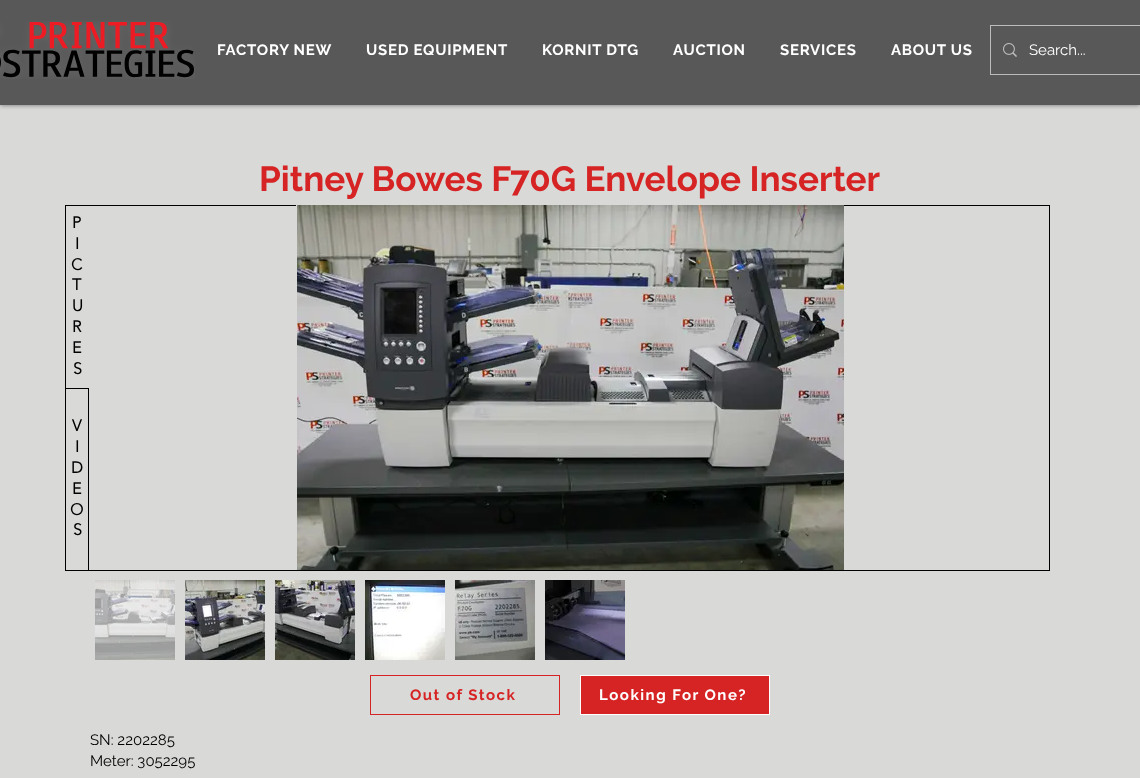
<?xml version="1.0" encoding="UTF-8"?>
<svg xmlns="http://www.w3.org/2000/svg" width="1140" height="778">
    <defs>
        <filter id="blur1" x="-50%" y="-200%" width="200%" height="500%"><feGaussianBlur stdDeviation="2.5"/></filter>
    </defs>
    <rect width="100%" height="100%" fill="#D9D9D8"/>
    <rect x="0" y="0" width="1140" height="105" fill="#000000" fill-opacity="0.5" filter="url(#blur1)"/>
    <rect x="0" y="0" width="1140" height="105" fill="#585858"/>
    <image x="0" y="21" width="195" height="58" href="img_01.png"/>
    <text x="217" y="55" font-family="'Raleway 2'" font-size="15" font-weight="700" letter-spacing="0.75" fill="#FFFFFF">FACTORY NEW</text>
    <text x="366" y="55" font-family="'Raleway 2'" font-size="15" font-weight="700" letter-spacing="0.75" fill="#FFFFFF">USED EQUIPMENT</text>
    <text x="542" y="55" font-family="'Raleway 2'" font-size="15" font-weight="700" letter-spacing="0.75" fill="#FFFFFF">KORNIT DTG</text>
    <text x="673" y="55" font-family="'Raleway 2'" font-size="15" font-weight="700" letter-spacing="0.75" fill="#FFFFFF">AUCTION</text>
    <text x="780" y="55" font-family="'Raleway 2'" font-size="15" font-weight="700" letter-spacing="0.75" fill="#FFFFFF">SERVICES</text>
    <text x="891" y="55" font-family="'Raleway 2'" font-size="15" font-weight="700" letter-spacing="0.75" fill="#FFFFFF">ABOUT US</text>
    <rect x="990.5" y="25.5" width="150" height="49" fill="none" stroke="#BCBCBC"/>
    <image x="1003" y="43" width="14" height="14" href="img_02.png"/>
    <text x="1029" y="55" font-family="Raleway" font-size="15" fill="#FFFFFF">Search...</text>
    <text x="259" y="191" font-family="Raleway" font-size="35" font-weight="700" fill="#D62424">Pitney Bowes F70G Envelope Inserter</text>
    <rect x="65.5" y="205.5" width="984" height="365" fill="none" stroke="#000000"/>
    <text x="72" y="228" font-family="'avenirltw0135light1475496'" font-size="16" font-weight="700" fill="#000000">P</text>
    <text x="75" y="249" font-family="'avenirltw0135light1475496'" font-size="16" font-weight="700" fill="#000000">I</text>
    <text x="71" y="270" font-family="'avenirltw0135light1475496'" font-size="16" font-weight="700" fill="#000000">C</text>
    <text font-family="'avenirltw0135light1475496'" font-size="16" font-weight="700" fill="#000000">
        <tspan x="72" y="290">T</tspan>
        <tspan x="72" y="311">U</tspan>
        <tspan x="72" y="332">R</tspan>
        <tspan x="72" y="353">E</tspan>
    </text>
    <text x="73" y="374" font-family="'avenirltw0135light1475496'" font-size="16" font-weight="700" fill="#000000">S</text>
    <rect x="65" y="388" width="24" height="1" fill="#000000"/>
    <rect x="88" y="388" width="1" height="183" fill="#000000"/>
    <text x="72" y="431" font-family="'avenirltw0135light1475496'" font-size="16" font-weight="700" fill="#000000">V</text>
    <text x="75" y="452" font-family="'avenirltw0135light1475496'" font-size="16" font-weight="700" fill="#000000">I</text>
    <text x="71" y="473" font-family="'avenirltw0135light1475496'" font-size="16" font-weight="700" fill="#000000">D</text>
    <text x="72" y="494" font-family="'avenirltw0135light1475496'" font-size="16" font-weight="700" fill="#000000">E</text>
    <text x="70" y="515" font-family="'avenirltw0135light1475496'" font-size="16" font-weight="700" fill="#000000">O</text>
    <text x="73" y="535" font-family="'avenirltw0135light1475496'" font-size="16" font-weight="700" fill="#000000">S</text>
    <rect x="296" y="205" width="1" height="1" fill="#D9D9D8"/>
    <image x="297" y="205" width="547" height="365" href="img_03.png"/>
    <image x="95" y="580" width="80" height="80" href="img_04.png"/>
    <image x="185" y="580" width="80" height="80" href="img_05.png"/>
    <image x="275" y="580" width="80" height="80" href="img_06.png"/>
    <image x="365" y="580" width="80" height="80" href="img_07.png"/>
    <image x="455" y="580" width="80" height="80" href="img_08.png"/>
    <image x="545" y="580" width="80" height="80" href="img_09.png"/>
    <rect x="370.5" y="675.5" width="189" height="39" fill="none" stroke="#D62424"/>
    <text x="410" y="700" font-family="'Raleway 2'" font-size="15" font-weight="700" letter-spacing="1.5" fill="#D62424">Out of Stock</text>
    <rect x="580.5" y="675.5" width="189" height="39" fill="#D62424" stroke="#FFFFFF"/>
    <text x="599" y="700" font-family="'Raleway 2'" font-size="15" font-weight="700" letter-spacing="1.5" fill="#FFFFFF">Looking For One?</text>
    <text font-family="Raleway" font-size="15" fill="#000000">
        <tspan x="90" y="745">SN: 2202285</tspan>
        <tspan x="90" y="766">Meter: 3052295</tspan>
    </text>
</svg>
